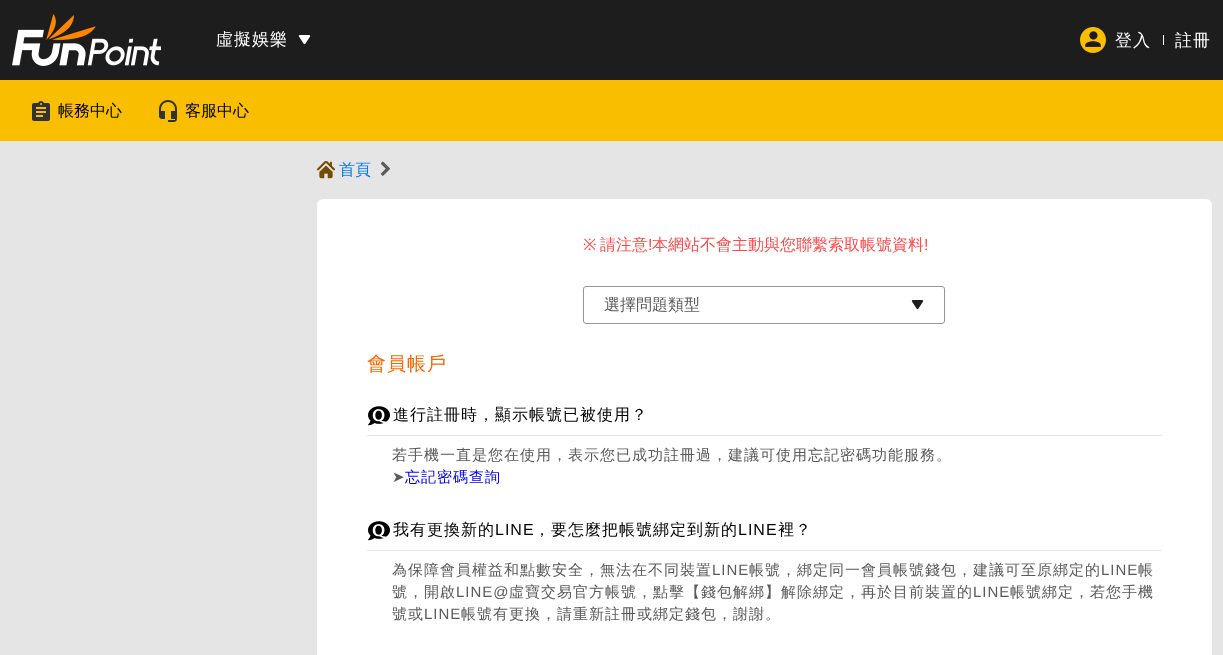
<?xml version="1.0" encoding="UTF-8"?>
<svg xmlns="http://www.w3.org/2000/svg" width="1223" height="655">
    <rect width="100%" height="100%" fill="#E5E5E5"/>
    <rect x="0" y="0" width="1223" height="80" fill="#1D1D1D"/>
    <image x="12" y="14" width="149" height="52" href="img_01.png"/>
    <text x="216" y="45" font-family="WenQuanYi Zen Hei" font-size="17" font-weight="500" letter-spacing="1" fill="#FFFFFF">虛擬娛樂</text>
    <image x="298" y="35" width="13" height="10" href="img_02.png"/>
    <image x="1080" y="27" width="26" height="26" href="img_03.png"/>
    <text x="1115" y="46" font-family="WenQuanYi Zen Hei" font-size="17" font-weight="500" letter-spacing="1" fill="#FFFFFF">登入</text>
    <rect x="1163" y="35" width="1" height="10" fill="#FFFFFF"/>
    <text x="1175" y="46" font-family="WenQuanYi Zen Hei" font-size="17" font-weight="500" letter-spacing="1" fill="#FFFFFF">註冊</text>
    <rect x="0" y="80" width="1223" height="61" fill="#F9BE00"/>
    <image x="32" y="101" width="18" height="20" href="img_04.png"/>
    <text x="58" y="116" font-family="WenQuanYi Zen Hei" font-size="16" font-weight="500" fill="#000000">帳務中心</text>
    <image x="159" y="100" width="18" height="22" href="img_05.png"/>
    <text x="185" y="116" font-family="WenQuanYi Zen Hei" font-size="16" font-weight="500" fill="#000000">客服中心</text>
    <image x="317" y="161" width="18" height="18" href="img_06.png"/>
    <text x="339" y="175" font-family="WenQuanYi Zen Hei" font-size="16" font-weight="500" fill="#007AFF">首頁</text>
    <image x="380" y="161" width="10" height="15" href="img_07.png"/>
    <rect x="317" y="199" width="895" height="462" rx="6" fill="#FFFFFF"/>
    <text x="583" y="250" font-family="Noto Sans" font-size="16" fill="#FF4B4B">※</text>
    <text x="600" y="250" font-family="WenQuanYi Zen Hei" font-size="16" font-weight="500" fill="#FF4B4B">請注意</text>
    <text x="648" y="250" font-family="Liberation Sans" font-size="16" fill="#FF4B4B">!</text>
    <text x="652" y="250" font-family="WenQuanYi Zen Hei" font-size="16" font-weight="500" fill="#FF4B4B">本網站不會主動與您聯繫索取帳號資料</text>
    <text x="924" y="250" font-family="Liberation Sans" font-size="16" fill="#FF4B4B">!</text>
    <rect x="583.5" y="286.5" width="361" height="37" rx="2.5" fill="none" stroke="#969696"/>
    <text x="604" y="310" font-family="WenQuanYi Zen Hei" font-size="16" font-weight="500" fill="#5A5A5A">選擇問題類型</text>
    <image x="911" y="300" width="13" height="10" href="img_08.png"/>
    <text x="367" y="370" font-family="WenQuanYi Zen Hei" font-size="19" font-weight="500" letter-spacing="1" fill="#FB6700">會員帳戶</text>
    <rect x="367" y="435" width="795" height="1" fill="#E7E6E6"/>
    <image x="368" y="406" width="22" height="20" href="img_09.png"/>
    <text x="393" y="420" font-family="WenQuanYi Zen Hei" font-size="16" font-weight="500" letter-spacing="1" fill="#000000">進行註冊時，顯示帳號已被使用？</text>
    <text x="392" y="460" font-family="WenQuanYi Zen Hei" font-size="15" font-weight="500" letter-spacing="1" fill="#5A5A5A">若手機一直是您在使用，表示您已成功註冊過，建議可使用忘記密碼功能服務。</text>
    <text x="392" y="482" font-family="DejaVu Sans" font-size="15" letter-spacing="1" fill="#5A5A5A">➤</text>
    <text x="405" y="482" font-family="WenQuanYi Zen Hei" font-size="15" font-weight="500" letter-spacing="1" fill="#0000EE">忘記密碼查詢</text>
    <rect x="367" y="550" width="795" height="1" fill="#E7E6E6"/>
    <image x="368" y="521" width="22" height="20" href="img_09.png"/>
    <text x="393" y="535" font-family="WenQuanYi Zen Hei" font-size="16" font-weight="500" letter-spacing="1" fill="#000000">我有更換新的</text>
    <text x="495" y="535" font-family="Liberation Sans" font-size="16" letter-spacing="1" fill="#000000">LINE</text>
    <text x="534" y="535" font-family="WenQuanYi Zen Hei" font-size="16" font-weight="500" letter-spacing="1" fill="#000000">，要怎麼把帳號綁定到新的</text>
    <text x="738" y="535" font-family="Liberation Sans" font-size="16" letter-spacing="1" fill="#000000">LINE</text>
    <text x="778" y="535" font-family="WenQuanYi Zen Hei" font-size="16" font-weight="500" letter-spacing="1" fill="#000000">裡？</text>
    <text x="392" y="575" font-family="WenQuanYi Zen Hei" font-size="15" font-weight="500" letter-spacing="1" fill="#5A5A5A">為保障會員權益和點數安全，無法在不同裝置</text>
    <text x="712" y="575" font-family="Liberation Sans" font-size="15" letter-spacing="1" fill="#5A5A5A">LINE</text>
    <text x="749" y="575" font-family="WenQuanYi Zen Hei" font-size="15" font-weight="500" letter-spacing="1" fill="#5A5A5A">帳號，綁定同一會員帳號錢包，建議可至原綁定的</text>
    <text x="1101" y="575" font-family="Liberation Sans" font-size="15" letter-spacing="1" fill="#5A5A5A">LINE</text>
    <text x="1138" y="575" font-family="WenQuanYi Zen Hei" font-size="15" font-weight="500" letter-spacing="1" fill="#5A5A5A">帳</text>
    <text x="392" y="597" font-family="WenQuanYi Zen Hei" font-size="15" font-weight="500" letter-spacing="1" fill="#5A5A5A">號，開啟</text>
    <text x="456" y="597" font-family="Liberation Sans" font-size="15" letter-spacing="1" fill="#5A5A5A">LINE@</text>
    <text x="509" y="597" font-family="WenQuanYi Zen Hei" font-size="15" font-weight="500" letter-spacing="1" fill="#5A5A5A">虛寶交易官方帳號，點擊【錢包解綁】解除綁定，再於目前裝置的</text>
    <text x="973" y="597" font-family="Liberation Sans" font-size="15" letter-spacing="1" fill="#5A5A5A">LINE</text>
    <text x="1010" y="597" font-family="WenQuanYi Zen Hei" font-size="15" font-weight="500" letter-spacing="1" fill="#5A5A5A">帳號綁定，若您手機</text>
    <text x="392" y="619" font-family="WenQuanYi Zen Hei" font-size="15" font-weight="500" letter-spacing="1" fill="#5A5A5A">號或</text>
    <text x="424" y="619" font-family="Liberation Sans" font-size="15" letter-spacing="1" fill="#5A5A5A">LINE</text>
    <text x="461" y="619" font-family="WenQuanYi Zen Hei" font-size="15" font-weight="500" letter-spacing="1" fill="#5A5A5A">帳號有更換，請重新註冊或綁定錢包，謝謝。</text>
</svg>
